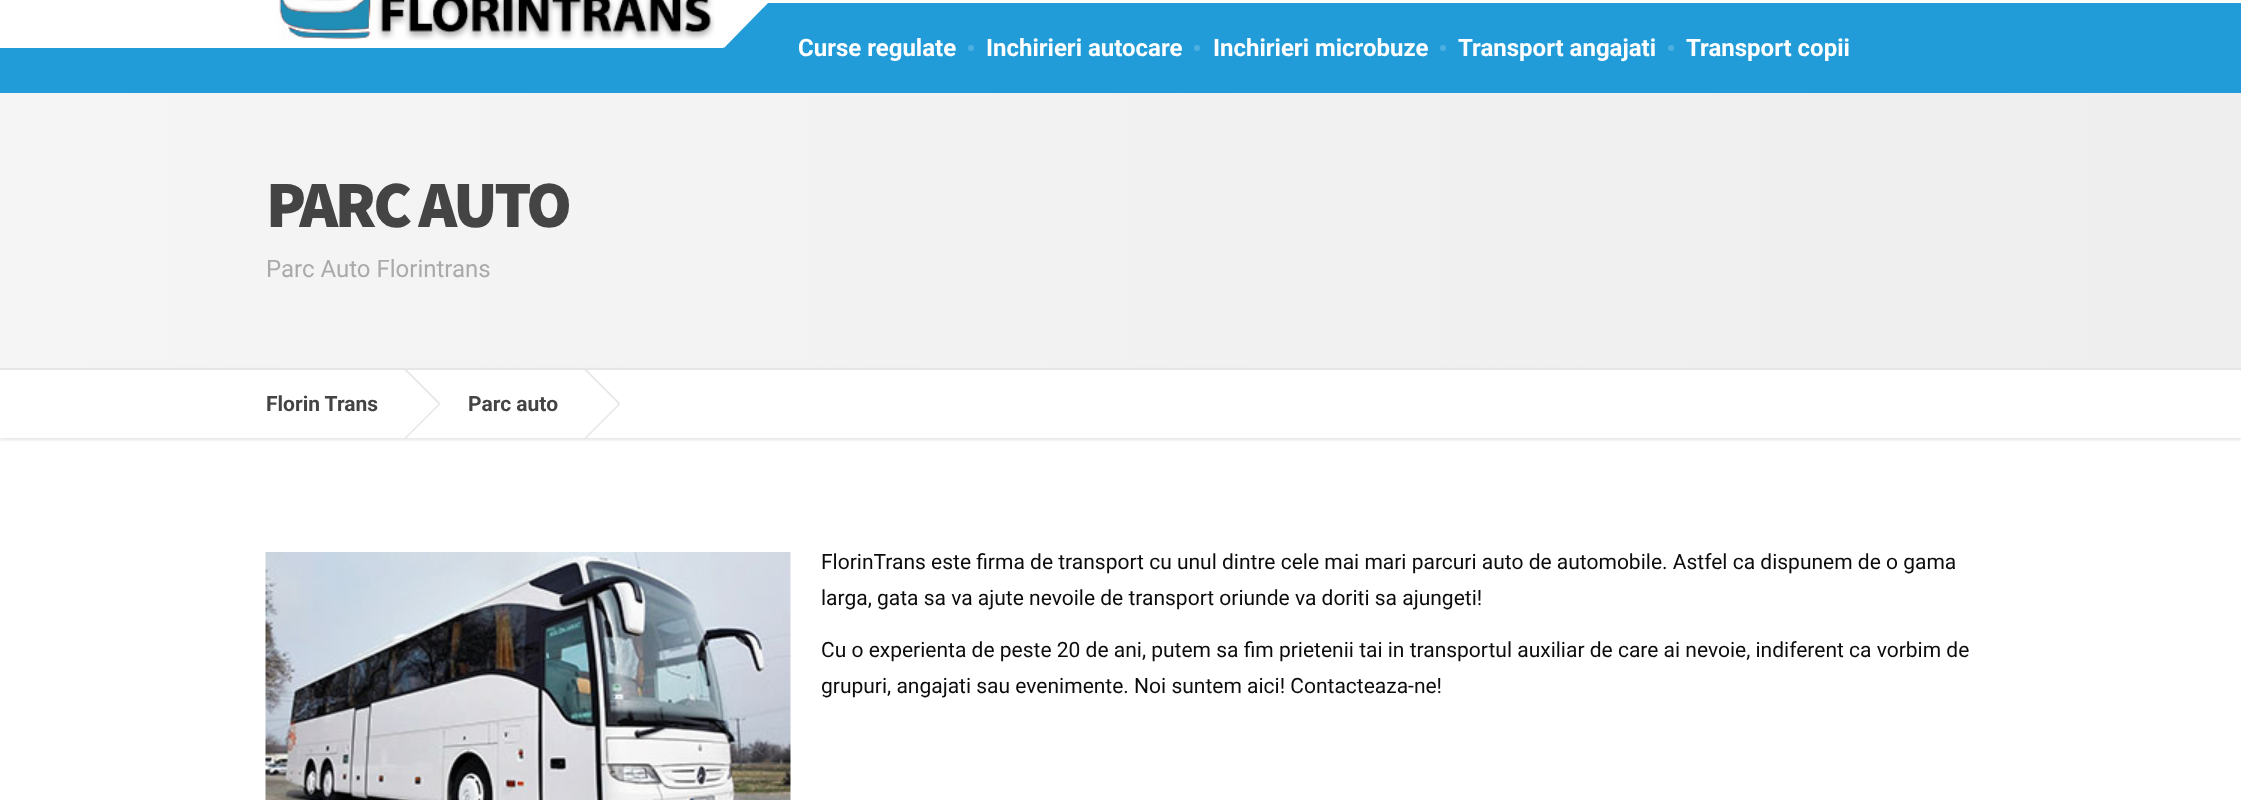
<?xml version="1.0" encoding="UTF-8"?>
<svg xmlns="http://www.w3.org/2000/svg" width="2241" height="800">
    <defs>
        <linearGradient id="g1" gradientUnits="userSpaceOnUse" x1="0" y1="230" x2="2241" y2="230"><stop offset="0" stop-color="#F5F5F5"/><stop offset="1" stop-color="#EEEEEE"/></linearGradient>
        <clipPath id="clip1"><path d="M 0 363 H 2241 V 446 H 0 Z M 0 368 H 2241 V 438 H 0 Z" clip-rule="evenodd"/></clipPath>
        <filter id="blur1" x="-50%" y="-200%" width="200%" height="500%"><feGaussianBlur stdDeviation="1.5"/></filter>
    </defs>
    <rect width="100%" height="100%" fill="#FFFFFF"/>
    <rect x="0" y="3" width="2241" height="90" fill="#229CD8"/>
    <rect x="0" y="3" width="723" height="45" fill="#FFFFFF"/>
    <path d="M 769 2 L 724 48 L 678 2 L 724 -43 Z" fill="#FFFFFF"/>
    <image x="277" y="0" width="438" height="40" href="img_01.png"/>
    <text x="798" y="56" font-family="Roboto" font-size="24" font-weight="700" fill="#FFFFFF">Curse regulate</text>
    <circle cx="971" cy="48" r="3" fill="#4DAFDF"/>
    <text x="986" y="56" font-family="Roboto" font-size="24" font-weight="700" fill="#FFFFFF">Inchirieri autocare</text>
    <circle cx="1197" cy="48" r="3" fill="#4DAFDF"/>
    <text x="1213" y="56" font-family="Roboto" font-size="24" font-weight="700" fill="#FFFFFF">Inchirieri microbuze</text>
    <circle cx="1443" cy="48" r="3" fill="#4DAFDF"/>
    <text x="1458" y="56" font-family="Roboto" font-size="24" font-weight="700" fill="#FFFFFF">Transport angajati</text>
    <circle cx="1671" cy="48" r="3" fill="#4DAFDF"/>
    <text x="1686" y="56" font-family="Roboto" font-size="24" font-weight="700" fill="#FFFFFF">Transport copii</text>
    <rect x="0" y="93" width="2241" height="275" fill="url(#g1)"/>
    <text x="266" y="227" font-family="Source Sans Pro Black" font-size="66" font-weight="900" letter-spacing="-3.25" fill="#444444">PARC AUTO</text>
    <text x="266" y="277" font-family="Roboto" font-size="24" fill="#AAAAAA">Parc Auto Florintrans</text>
    <g clip-path="url(#clip1)">
        <rect x="0" y="369" width="2241" height="71" fill="#E6E6E6" filter="url(#blur1)"/>
    </g>
    <rect x="0" y="368" width="2241" height="2" fill="#E6E6E6"/>
    <text x="266" y="411" font-family="Roboto" font-size="21" font-weight="700" fill="#444444">Florin Trans</text>
    <path d="M 404 369.5 L 405 368 L 440 403 L 439 404.5 Z" fill="#E6E6E6"/>
    <path d="M 439 403.5 L 440 404.5 L 405 439.5 L 404 438.5 Z" fill="#E6E6E6"/>
    <text x="468" y="411" font-family="Roboto" font-size="21" font-weight="700" fill="#444444">Parc auto</text>
    <path d="M 584 369.5 L 585 368 L 620 403 L 619 404.5 Z" fill="#E6E6E6"/>
    <path d="M 619 403.5 L 620 404.5 L 585 439.5 L 584 438.5 Z" fill="#E6E6E6"/>
    <image x="265" y="552" width="526" height="248" href="img_02.png"/>
    <text font-family="Roboto" font-size="21" fill="#0C0C0C">
        <tspan x="821" y="569">FlorinTrans este firma de transport cu unul dintre cele mai mari parcuri auto de automobile. Astfel ca dispunem de o gama</tspan>
        <tspan x="821" y="605">larga, gata sa va ajute nevoile de transport oriunde va doriti sa ajungeti!</tspan>
    </text>
    <text font-family="Roboto" font-size="21" fill="#0C0C0C">
        <tspan x="821" y="657">Cu o experienta de peste 20 de ani, putem sa fim prietenii tai in transportul auxiliar de care ai nevoie, indiferent ca vorbim de</tspan>
        <tspan x="821" y="693">grupuri, angajati sau evenimente. Noi suntem aici! Contacteaza-ne!</tspan>
    </text>
</svg>
